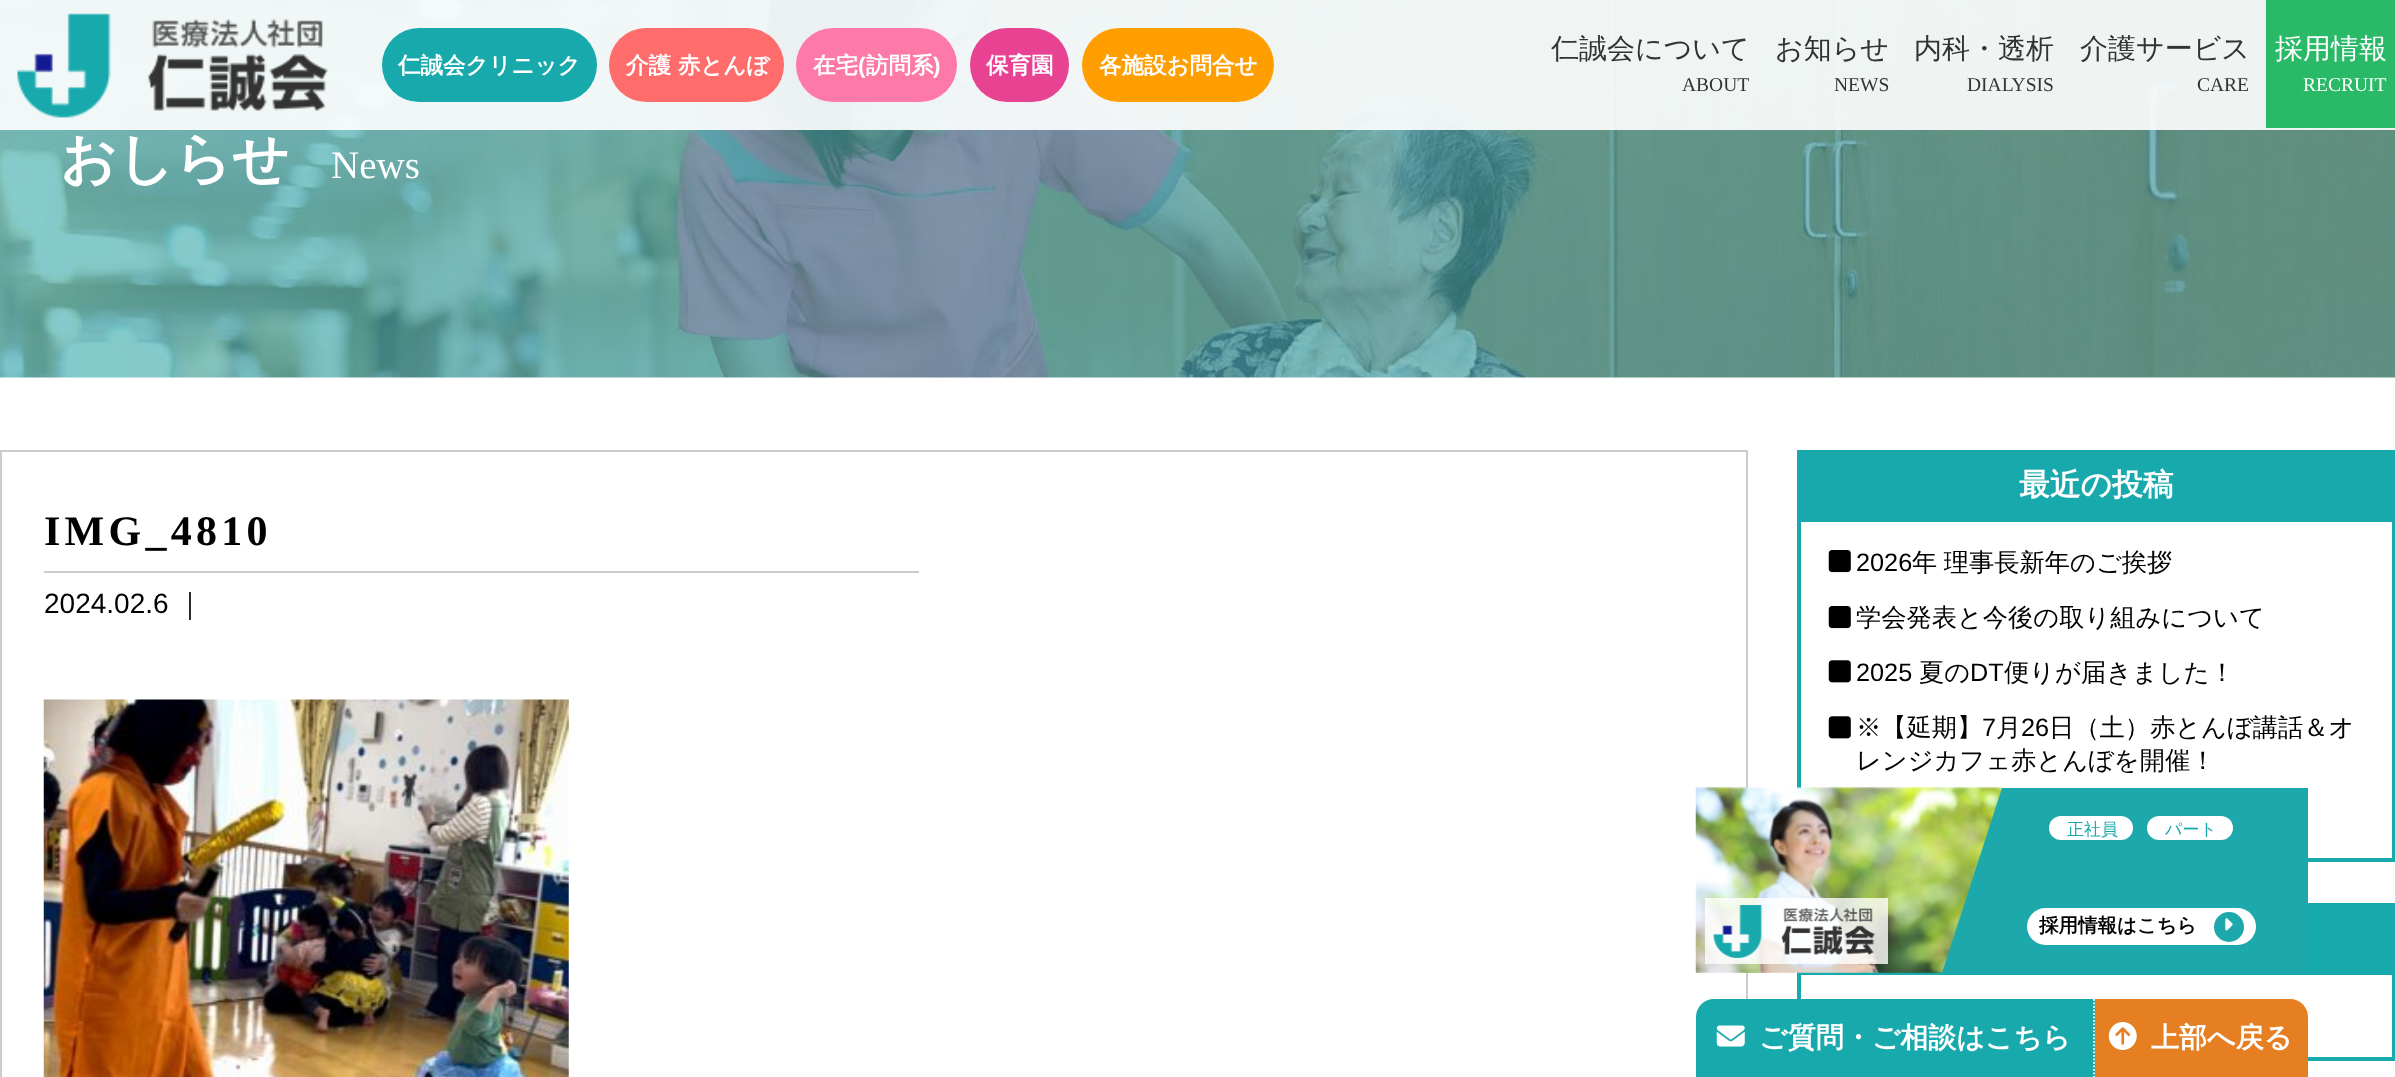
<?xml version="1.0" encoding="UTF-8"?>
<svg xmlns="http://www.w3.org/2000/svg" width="2395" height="1077">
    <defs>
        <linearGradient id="g1" gradientUnits="userSpaceOnUse" x1="1916" y1="862" x2="2027" y2="898"><stop offset="0.5" stop-color="#1DA9AC" stop-opacity="0"/><stop offset="0.51" stop-color="#1DA9AC"/></linearGradient>
    </defs>
    <rect width="100%" height="100%" fill="#FFFFFF"/>
    <image x="0" y="0" width="2395" height="378" href="img_01.png"/>
    <text x="60" y="178" font-family="WenQuanYi Zen Hei" font-size="56" font-weight="700" fill="#FFFFFF">おしらせ</text>
    <text x="331" y="178" font-family="Liberation Serif" font-size="39" fill="#FFFFFF">News</text>
    <rect x="0" y="0" width="2395" height="130" fill="#FFFFFF" fill-opacity="0.9"/>
    <image x="17" y="13" width="311" height="105" href="img_02.png"/>
    <rect x="382" y="28" width="215" height="74" rx="37" fill="#17A9AC"/>
    <text x="398" y="73" font-family="WenQuanYi Zen Hei" font-size="22.5" font-weight="700" fill="#FFFFFF">仁誠会クリニック</text>
    <rect x="609" y="28" width="175" height="74" rx="37" fill="#FF6C6C"/>
    <text x="626" y="73" font-family="WenQuanYi Zen Hei" font-size="22.5" font-weight="700" fill="#FFFFFF">介護 赤とんぼ</text>
    <rect x="796" y="28" width="161" height="74" rx="37" fill="#FD79A8"/>
    <text x="813" y="73" font-family="WenQuanYi Zen Hei" font-size="22.5" font-weight="700" fill="#FFFFFF">在宅</text>
    <text x="858" y="73" font-family="Liberation Sans" font-size="22.5" font-weight="700" fill="#FFFFFF">(</text>
    <text x="866" y="73" font-family="WenQuanYi Zen Hei" font-size="22.5" font-weight="700" fill="#FFFFFF">訪問系</text>
    <text x="933" y="73" font-family="Liberation Sans" font-size="22.5" font-weight="700" fill="#FFFFFF">)</text>
    <rect x="970" y="28" width="99" height="74" rx="37" fill="#E84393"/>
    <text x="986" y="73" font-family="WenQuanYi Zen Hei" font-size="22.5" font-weight="700" fill="#FFFFFF">保育園</text>
    <rect x="1082" y="28" width="192" height="74" rx="37" fill="#FF9E00"/>
    <text x="1099" y="73" font-family="WenQuanYi Zen Hei" font-size="22.5" font-weight="700" fill="#FFFFFF">各施設お問合せ</text>
    <text x="1551" y="58" font-family="WenQuanYi Zen Hei" font-size="28" font-weight="500" fill="#333333">仁誠会について</text>
    <text x="1682" y="91" font-family="Liberation Serif" font-size="19.5" fill="#333333">ABOUT</text>
    <text x="1775" y="58" font-family="WenQuanYi Zen Hei" font-size="28" font-weight="500" fill="#333333">お知らせ</text>
    <text x="1834" y="91" font-family="Liberation Serif" font-size="19.5" fill="#333333">NEWS</text>
    <text x="1914" y="58" font-family="WenQuanYi Zen Hei" font-size="28" font-weight="500" fill="#333333">内科・透析</text>
    <text x="1967" y="91" font-family="Liberation Serif" font-size="19.5" fill="#333333">DIALYSIS</text>
    <text x="2080" y="58" font-family="WenQuanYi Zen Hei" font-size="28" font-weight="500" fill="#333333">介護サービス</text>
    <text x="2197" y="91" font-family="Liberation Serif" font-size="19.5" fill="#333333">CARE</text>
    <rect x="2266" y="0" width="129" height="128" fill="#29B967"/>
    <text x="2275" y="58" font-family="WenQuanYi Zen Hei" font-size="28" font-weight="500" fill="#FFFFFF">採用情報</text>
    <text x="2303" y="91" font-family="Liberation Serif" font-size="19.5" fill="#FFFFFF">RECRUIT</text>
    <rect x="1" y="451" width="1746" height="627" fill="none" stroke="#CCCCCC" stroke-width="2"/>
    <rect x="1797" y="522" width="4" height="267" fill="#17A9AC"/>
    <rect x="1797" y="903" width="598" height="72" fill="#17A9AC"/>
    <image x="1695" y="787" width="307" height="186" href="img_03.png"/>
    <rect x="1705" y="898" width="183" height="66" fill="#FFFFFF" fill-opacity="0.8"/>
    <image x="1713" y="905" width="163" height="53" href="img_04.png"/>
    <rect x="1942" y="788" width="60" height="185" fill="url(#g1)"/>
    <rect x="2002" y="788" width="306" height="185" fill="#1DA9AC"/>
    <rect x="2049" y="816" width="84" height="24" rx="12" fill="#FFFFFF"/>
    <text x="2067" y="835" font-family="WenQuanYi Zen Hei" font-size="17" font-weight="500" fill="#1DA9AC">正社員</text>
    <rect x="2147" y="816" width="86" height="24" rx="12" fill="#FFFFFF"/>
    <text x="2165" y="835" font-family="WenQuanYi Zen Hei" font-size="17" font-weight="500" fill="#1DA9AC">パート</text>
    <rect x="2027" y="908" width="229" height="37" rx="18.5" fill="#FFFFFF"/>
    <text x="2039" y="932" font-family="WenQuanYi Zen Hei" font-size="19.5" font-weight="700" fill="#000000">採用情報はこちら</text>
    <circle cx="2229" cy="927" r="15" fill="#1DA9AC"/>
    <image x="2225" y="918" width="8" height="13" href="img_05.png"/>
    <text x="44" y="545" font-family="Liberation Serif" font-size="42" font-weight="700" letter-spacing="4.25" fill="#000000">IMG_4810</text>
    <rect x="44" y="571" width="875" height="2" fill="#CCCCCC"/>
    <text x="44" y="613" font-family="Liberation Sans" font-size="28" fill="#000000">2024.02.6</text>
    <text x="176" y="613" font-family="WenQuanYi Zen Hei" font-size="28" font-weight="500" fill="#000000">｜</text>
    <image x="43" y="699" width="526" height="378" href="img_06.png"/>
    <rect x="1797" y="450" width="598" height="72" fill="#17A9AC"/>
    <text x="2019" y="495" font-family="WenQuanYi Zen Hei" font-size="30.75" font-weight="700" fill="#FFFFFF">最近の投稿</text>
    <rect x="2392" y="522" width="3" height="339" fill="#17A9AC"/>
    <rect x="2308" y="858" width="87" height="4" fill="#17A9AC"/>
    <image x="1828" y="550" width="23" height="23" href="img_07.png"/>
    <text x="1856" y="571" font-family="Liberation Sans" font-size="25.25" fill="#000000">2026</text>
    <text x="1912" y="571" word-spacing="-1" font-family="WenQuanYi Zen Hei" font-size="25.25" font-weight="500" fill="#000000">年 理事長新年のご挨拶</text>
    <image x="1828" y="606" width="23" height="23" href="img_07.png"/>
    <text x="1856" y="626" font-family="WenQuanYi Zen Hei" font-size="25.25" font-weight="500" fill="#000000">学会発表と今後の取り組みについて</text>
    <image x="1828" y="660" width="23" height="23" href="img_08.png"/>
    <text x="1856" y="681" font-family="Liberation Sans" font-size="25.25" fill="#000000">2025</text>
    <text x="1919" y="681" font-family="WenQuanYi Zen Hei" font-size="25.25" font-weight="500" fill="#000000">夏の</text>
    <text x="1970" y="681" font-family="Liberation Sans" font-size="25.25" fill="#000000">DT</text>
    <text x="2004" y="681" font-family="WenQuanYi Zen Hei" font-size="25.25" font-weight="500" fill="#000000">便りが届きました！</text>
    <image x="1828" y="716" width="23" height="23" href="img_08.png"/>
    <text x="1856" y="736" font-family="WenQuanYi Zen Hei" font-size="25.25" font-weight="500" fill="#000000">※【延期】</text>
    <text x="1982" y="736" font-family="Liberation Sans" font-size="25.25" fill="#000000">7</text>
    <text x="1996" y="736" font-family="WenQuanYi Zen Hei" font-size="25.25" font-weight="500" fill="#000000">月</text>
    <text x="2021" y="736" font-family="Liberation Sans" font-size="25.25" fill="#000000">26</text>
    <text x="2049" y="736" font-family="WenQuanYi Zen Hei" font-size="25.25" font-weight="500" fill="#000000">日（土）赤とんぼ講話＆オ</text>
    <text x="1856" y="769" font-family="WenQuanYi Zen Hei" font-size="25.25" font-weight="500" fill="#000000">レンジカフェ赤とんぼを開催！</text>
    <rect x="2392" y="975" width="3" height="86" fill="#17A9AC"/>
    <rect x="2308" y="1057" width="87" height="4" fill="#17A9AC"/>
    <rect x="1797" y="975" width="4" height="24" fill="#17A9AC"/>
    <path d="M 1714 999 H 2095 V 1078 H 1696 V 1017 C 1696 1007 1704 999 1714 999 Z" fill="#17A9AC"/>
    <path d="M 2094 999 V 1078" fill="none" stroke="#FFFFFF" stroke-width="1.8" stroke-dasharray="1.75 1.75"/>
    <image x="1716" y="1025" width="29" height="22" href="img_09.png"/>
    <text x="1759" y="1047" font-family="WenQuanYi Zen Hei" font-size="28" font-weight="700" fill="#FFFFFF">ご質問・ご相談はこちら</text>
    <path d="M 2095 999 H 2290 C 2300 999 2308 1007 2308 1017 V 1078 H 2095 Z" fill="#E67E22"/>
    <image x="2108" y="1022" width="29" height="28" href="img_10.png"/>
    <text x="2151" y="1047" font-family="WenQuanYi Zen Hei" font-size="28" font-weight="700" fill="#FFFFFF">上部へ戻る</text>
</svg>
